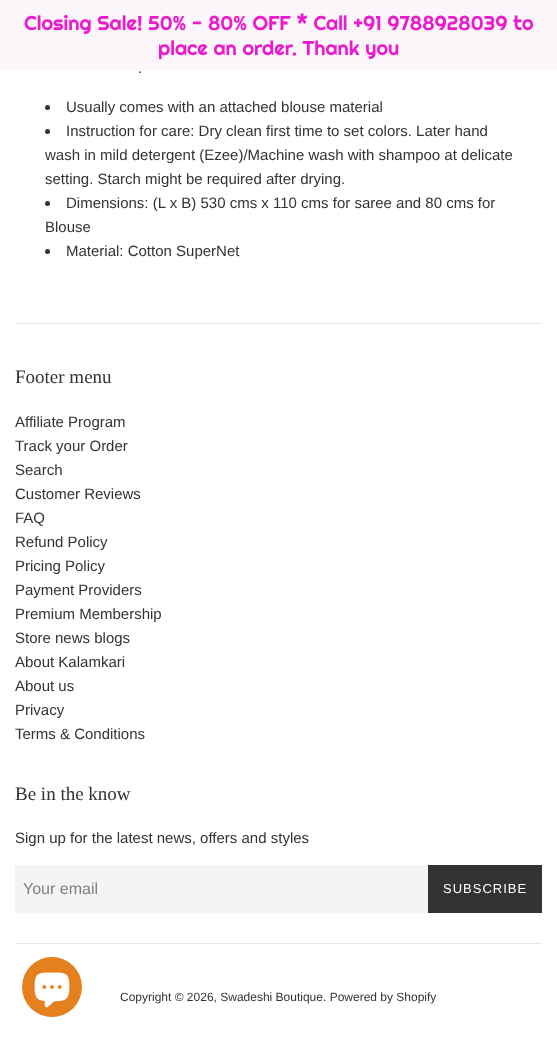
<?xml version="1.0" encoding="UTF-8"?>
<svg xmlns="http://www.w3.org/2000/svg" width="557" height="1038">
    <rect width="100%" height="100%" fill="#FFFFFF"/>
    <rect x="0" y="0" width="557" height="70" fill="#FAF6FA"/>
    <text x="24" y="30" font-family="Righteous" font-size="20" fill="#EB1BCD">Closing Sale! 50% - 80% OFF * Call +91 9788928039 to</text>
    <text x="158" y="55" font-family="Righteous" font-size="20" fill="#EB1BCD">place an order. Thank you</text>
    <text x="138" y="73" font-family="Liberation Sans" font-size="15" fill="#333333">.</text>
    <circle cx="47.5" cy="107.5" r="2.5" fill="#333333"/>
    <text x="66" y="112" font-family="Liberation Sans" font-size="15" fill="#333333">Usually comes with an attached blouse material</text>
    <circle cx="47.5" cy="131.5" r="2.5" fill="#333333"/>
    <text x="66" y="136" font-family="Liberation Sans" font-size="15" fill="#333333">Instruction for care: Dry clean first time to set colors. Later hand</text>
    <text font-family="Liberation Sans" font-size="15" fill="#333333">
        <tspan x="45" y="160">wash in mild detergent (Ezee)/Machine wash with shampoo at delicate</tspan>
        <tspan x="45" y="184">setting. Starch might be required after drying.</tspan>
    </text>
    <circle cx="47.5" cy="203.5" r="2.5" fill="#333333"/>
    <text x="66" y="208" font-family="Liberation Sans" font-size="15" fill="#333333">Dimensions: (L x B) 530 cms x 110 cms for saree and 80 cms for</text>
    <text x="45" y="232" font-family="Liberation Sans" font-size="15" fill="#333333">Blouse</text>
    <circle cx="47.5" cy="251.5" r="2.5" fill="#333333"/>
    <text x="66" y="256" font-family="Liberation Sans" font-size="15" fill="#333333">Material: Cotton SuperNet</text>
    <rect x="15" y="323" width="527" height="1" fill="#E8E8E8"/>
    <text x="15" y="383" font-family="Liberation Serif" font-size="19" fill="#333333">Footer menu</text>
    <text font-family="Liberation Sans" font-size="15" fill="#333333">
        <tspan x="15" y="427">Affiliate Program</tspan>
        <tspan x="15" y="451">Track your Order</tspan>
        <tspan x="15" y="475">Search</tspan>
        <tspan x="15" y="499">Customer Reviews</tspan>
        <tspan x="15" y="523">FAQ</tspan>
        <tspan x="15" y="547">Refund Policy</tspan>
        <tspan x="15" y="571">Pricing Policy</tspan>
        <tspan x="15" y="595">Payment Providers</tspan>
        <tspan x="15" y="619">Premium Membership</tspan>
        <tspan x="15" y="643">Store news blogs</tspan>
        <tspan x="15" y="667">About Kalamkari</tspan>
        <tspan x="15" y="691">About us</tspan>
        <tspan x="15" y="715">Privacy</tspan>
        <tspan x="15" y="739">Terms &amp; Conditions</tspan>
    </text>
    <text x="15" y="800" font-family="Liberation Serif" font-size="19" fill="#333333">Be in the know</text>
    <text x="15" y="843" font-family="Liberation Sans" font-size="15" fill="#333333">Sign up for the latest news, offers and styles</text>
    <rect x="15" y="865" width="413" height="48" fill="#F4F4F4"/>
    <text x="23" y="894" font-family="Liberation Sans" font-size="16" fill="#808080">Your email</text>
    <rect x="428" y="865" width="114" height="48" fill="#333333"/>
    <text x="443" y="893" font-family="Liberation Sans" font-size="13" letter-spacing="1" fill="#FFFFFF">SUBSCRIBE</text>
    <rect x="15" y="943" width="527" height="1" fill="#E8E8E8"/>
    <text x="120" y="1001" font-family="Liberation Sans" font-size="12" fill="#333333">Copyright © 2026, Swadeshi Boutique. Powered by Shopify</text>
    <circle cx="52" cy="987" r="30" fill="#E5801E"/>
    <image x="34" y="972" width="36" height="36" href="img_01.png"/>
</svg>
